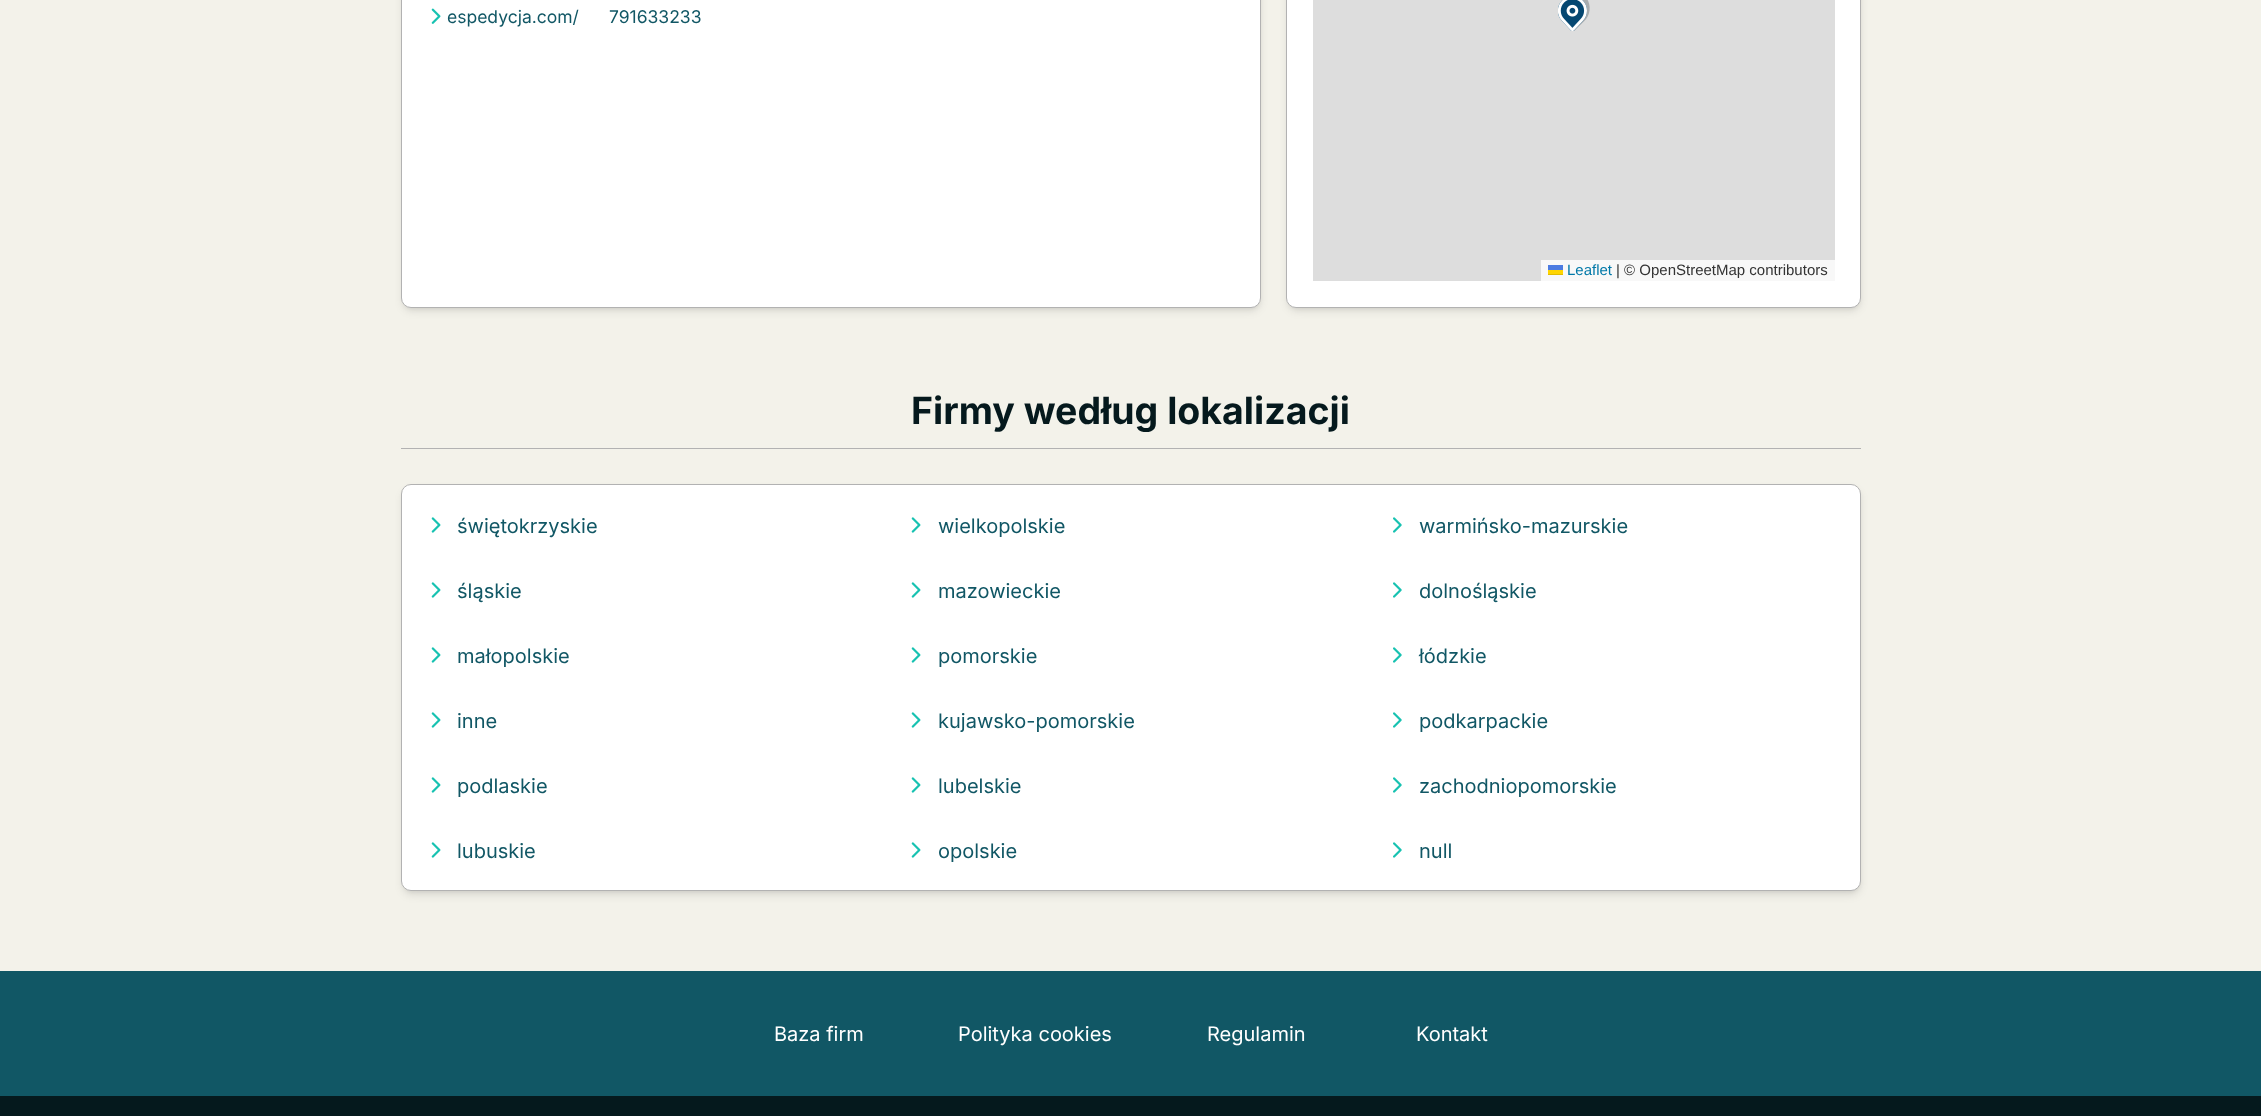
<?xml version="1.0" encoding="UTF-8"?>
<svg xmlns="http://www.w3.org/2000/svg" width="2261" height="1116">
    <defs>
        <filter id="blur1" x="-50%" y="-200%" width="200%" height="500%"><feGaussianBlur stdDeviation="2.5"/></filter>
        <filter id="blur2" x="-50%" y="-200%" width="200%" height="500%"><feGaussianBlur stdDeviation="4"/></filter>
    </defs>
    <rect width="100%" height="100%" fill="#F3F2EA"/>
    <rect x="404" y="-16" width="855" height="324" rx="8" fill="#000000" fill-opacity="0.1" filter="url(#blur1)"/>
    <rect x="403" y="-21" width="857" height="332" rx="9" fill="#000000" fill-opacity="0.1" filter="url(#blur2)"/>
    <rect x="401.5" y="-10.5" width="859" height="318" rx="9.5" fill="#FFFFFF" stroke="#B2B2B2"/>
    <image x="431" y="8" width="10" height="16" href="img_01.png"/>
    <text x="447" y="23" font-family="Inter" font-size="17.5" fill="#115765">espedycja.com/</text>
    <text x="609" y="23" font-family="Inter" font-size="17.5" fill="#115765">791633233</text>
    <rect x="1289" y="-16" width="570" height="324" rx="8" fill="#000000" fill-opacity="0.1" filter="url(#blur1)"/>
    <rect x="1288" y="-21" width="572" height="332" rx="9" fill="#000000" fill-opacity="0.1" filter="url(#blur2)"/>
    <rect x="1286.5" y="-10.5" width="574" height="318" rx="9.5" fill="#FFFFFF" stroke="#B2B2B2"/>
    <rect x="1313" y="0" width="522" height="281" fill="#DDDDDD"/>
    <image x="1558" y="0" width="32" height="31" href="img_02.png"/>
    <rect x="1541" y="260" width="294" height="21" fill="#F8F8F8"/>
    <text x="1567" y="275" font-family="Liberation Sans" font-size="15" fill="#0078A8">Leaflet</text>
    <rect x="1548" y="265" width="15" height="5" fill="#4C7BE1"/>
    <rect x="1548" y="270" width="15" height="4" fill="#FFD500"/>
    <rect x="1548" y="274" width="15" height="1" fill="#E0BC00"/>
    <text x="1616" y="275" font-family="Liberation Sans" font-size="15" fill="#333333">| © OpenStreetMap contributors</text>
    <rect x="401" y="448" width="1460" height="1" fill="#B2B2B2"/>
    <text x="911" y="424" font-family="Inter" font-size="37.5" font-weight="700" fill="#05191D">Firmy według lokalizacji</text>
    <rect x="404" y="489" width="1455" height="402" rx="8" fill="#000000" fill-opacity="0.1" filter="url(#blur1)"/>
    <rect x="403" y="490" width="1457" height="405" rx="9" fill="#000000" fill-opacity="0.1" filter="url(#blur2)"/>
    <rect x="401.5" y="484.5" width="1459" height="406" rx="9.5" fill="#FFFFFF" stroke="#B2B2B2"/>
    <image x="431" y="517" width="10" height="16" href="img_03.png"/>
    <text x="457" y="533" font-family="Inter" font-size="20" fill="#115765">świętokrzyskie</text>
    <image x="911" y="517" width="10" height="16" href="img_03.png"/>
    <text x="938" y="533" font-family="Inter" font-size="20" fill="#115765">wielkopolskie</text>
    <image x="1393" y="517" width="9" height="16" href="img_04.png"/>
    <text x="1419" y="533" font-family="Inter" font-size="20" fill="#115765">warmińsko-mazurskie</text>
    <image x="431" y="582" width="10" height="16" href="img_03.png"/>
    <text x="457" y="598" font-family="Inter" font-size="20" fill="#115765">śląskie</text>
    <image x="911" y="582" width="10" height="16" href="img_03.png"/>
    <text x="938" y="598" font-family="Inter" font-size="20" fill="#115765">mazowieckie</text>
    <image x="1393" y="582" width="9" height="16" href="img_04.png"/>
    <text x="1419" y="598" font-family="Inter" font-size="20" fill="#115765">dolnośląskie</text>
    <image x="431" y="647" width="10" height="16" href="img_03.png"/>
    <text x="457" y="663" font-family="Inter" font-size="20" fill="#115765">małopolskie</text>
    <image x="911" y="647" width="10" height="16" href="img_03.png"/>
    <text x="938" y="663" font-family="Inter" font-size="20" fill="#115765">pomorskie</text>
    <image x="1393" y="647" width="9" height="16" href="img_04.png"/>
    <text x="1419" y="663" font-family="Inter" font-size="20" fill="#115765">łódzkie</text>
    <image x="431" y="712" width="10" height="16" href="img_03.png"/>
    <text x="457" y="728" font-family="Inter" font-size="20" fill="#115765">inne</text>
    <image x="911" y="712" width="10" height="16" href="img_03.png"/>
    <text x="938" y="728" font-family="Inter" font-size="20" fill="#115765">kujawsko-pomorskie</text>
    <image x="1393" y="712" width="9" height="16" href="img_04.png"/>
    <text x="1419" y="728" font-family="Inter" font-size="20" fill="#115765">podkarpackie</text>
    <image x="431" y="777" width="10" height="16" href="img_03.png"/>
    <text x="457" y="793" font-family="Inter" font-size="20" fill="#115765">podlaskie</text>
    <image x="911" y="777" width="10" height="16" href="img_03.png"/>
    <text x="938" y="793" font-family="Inter" font-size="20" fill="#115765">lubelskie</text>
    <image x="1393" y="777" width="9" height="16" href="img_04.png"/>
    <text x="1419" y="793" font-family="Inter" font-size="20" fill="#115765">zachodniopomorskie</text>
    <image x="431" y="842" width="10" height="16" href="img_03.png"/>
    <text x="457" y="858" font-family="Inter" font-size="20" fill="#115765">lubuskie</text>
    <image x="911" y="842" width="10" height="16" href="img_03.png"/>
    <text x="938" y="858" font-family="Inter" font-size="20" fill="#115765">opolskie</text>
    <image x="1393" y="842" width="9" height="16" href="img_04.png"/>
    <text x="1419" y="858" font-family="Inter" font-size="20" fill="#115765">null</text>
    <rect x="0" y="971" width="2261" height="125" fill="#115765"/>
    <text x="774" y="1041" font-family="Inter" font-size="20" fill="#FFFFFF">Baza firm</text>
    <text x="958" y="1041" font-family="Inter" font-size="20" fill="#FFFFFF">Polityka cookies</text>
    <text x="1207" y="1041" font-family="Inter" font-size="20" fill="#FFFFFF">Regulamin</text>
    <text x="1416" y="1041" font-family="Inter" font-size="20" fill="#FFFFFF">Kontakt</text>
    <rect x="0" y="1096" width="2261" height="20" fill="#05191D"/>
</svg>
